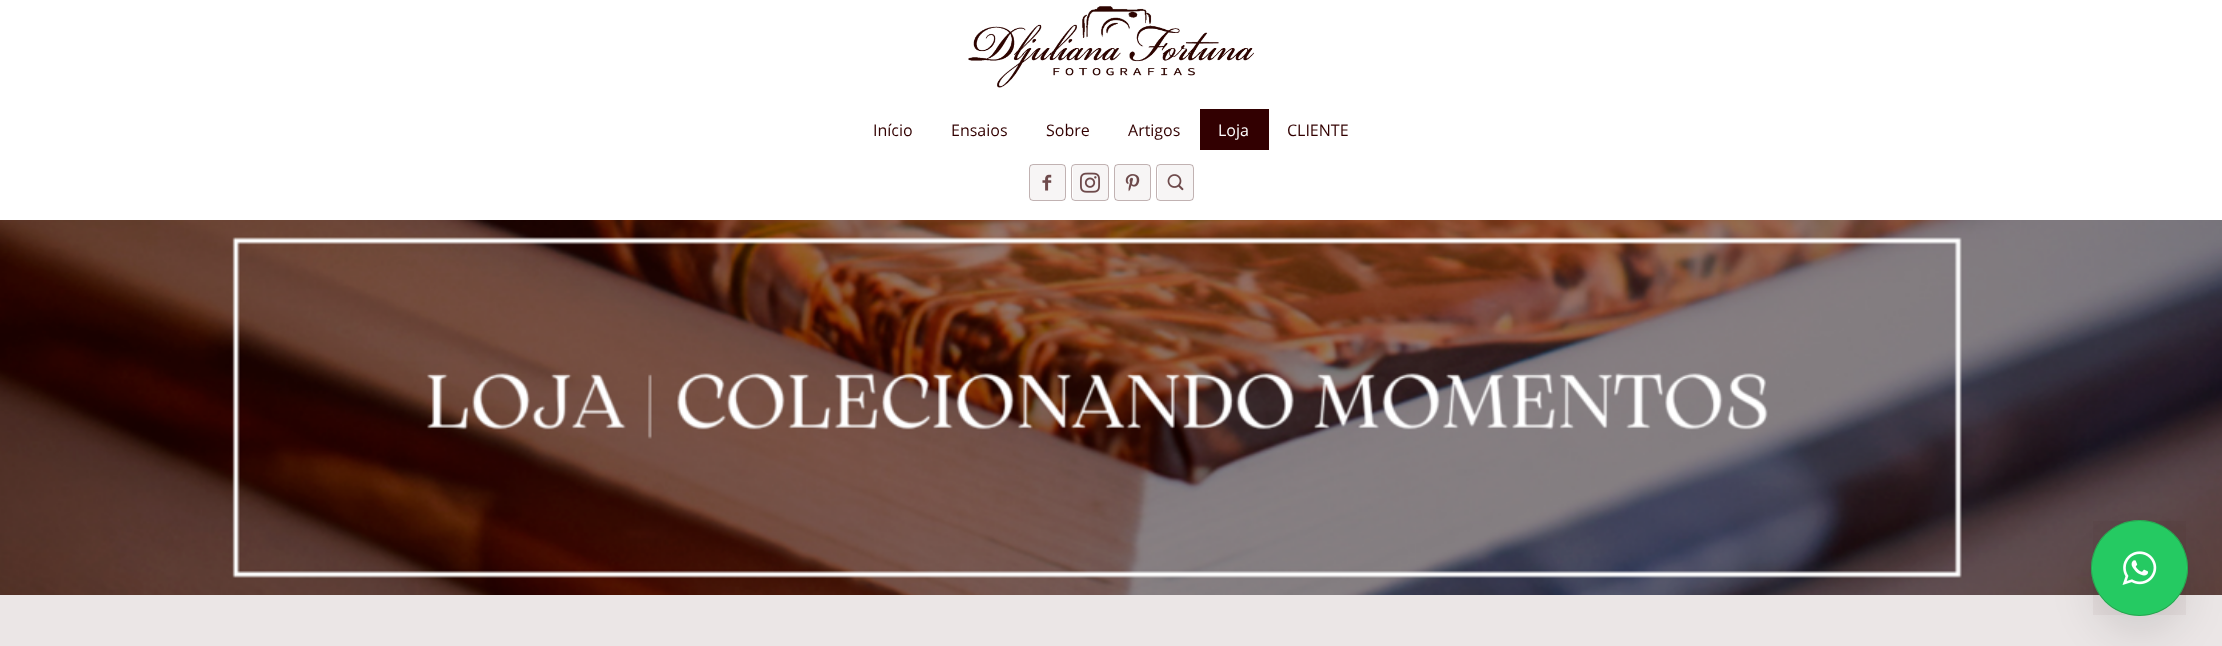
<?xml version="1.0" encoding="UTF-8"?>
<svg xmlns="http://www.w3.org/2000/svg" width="2222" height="646">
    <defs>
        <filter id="blur1" x="-50%" y="-200%" width="200%" height="500%"><feGaussianBlur stdDeviation="20"/></filter>
    </defs>
    <rect width="100%" height="100%" fill="#FFFFFF"/>
    <image x="968" y="6" width="286" height="82" href="img_01.png"/>
    <text x="873" y="136" font-family="Open Sans" font-size="16" fill="#320001">Início</text>
    <text x="951" y="136" font-family="Open Sans" font-size="16" fill="#320001">Ensaios</text>
    <text x="1046" y="136" font-family="Open Sans" font-size="16" fill="#320001">Sobre</text>
    <text x="1128" y="136" font-family="Open Sans" font-size="16" fill="#320001">Artigos</text>
    <rect x="1200" y="109" width="69" height="41" fill="#320001"/>
    <text x="1218" y="136" font-family="Open Sans" font-size="16" fill="#FFFFFF">Loja</text>
    <text x="1287" y="136" font-family="Open Sans" font-size="16" fill="#320001">CLIENTE</text>
    <rect x="1029.5" y="164.5" width="36" height="36" rx="3.5" fill="none" stroke="#320001" stroke-opacity="0.3"/>
    <rect x="1030" y="165" width="35" height="35" fill="#320001" fill-opacity="0.04"/>
    <image x="1042" y="174" width="10" height="17" href="img_02.png"/>
    <rect x="1071.5" y="164.5" width="37" height="36" rx="3.5" fill="none" stroke="#320001" stroke-opacity="0.3"/>
    <rect x="1073" y="165" width="35" height="35" fill="#320001" fill-opacity="0.04"/>
    <image x="1080" y="172" width="20" height="21" href="img_03.png"/>
    <rect x="1114.5" y="164.5" width="36" height="36" rx="3.5" fill="none" stroke="#320001" stroke-opacity="0.3"/>
    <rect x="1115" y="165" width="35" height="35" fill="#320001" fill-opacity="0.04"/>
    <image x="1125" y="174" width="15" height="18" href="img_04.png"/>
    <rect x="1156.5" y="164.5" width="37" height="36" rx="3.5" fill="none" stroke="#320001" stroke-opacity="0.3"/>
    <rect x="1158" y="165" width="35" height="35" fill="#320001" fill-opacity="0.04"/>
    <image x="1167" y="174" width="17" height="17" href="img_05.png"/>
    <image x="0" y="220" width="2222" height="375" href="img_06.png"/>
    <rect x="0" y="595" width="2222" height="51" fill="#EBE6E6"/>
    <rect x="2091" y="540" width="97" height="96" rx="48" fill="#000000" fill-opacity="0.1" filter="url(#blur1)"/>
    <rect x="2091" y="520" width="97" height="96" rx="48" fill="#25D366"/>
    <rect x="2091.5" y="520.5" width="96" height="95" rx="47.5" fill="none" stroke="#320001" stroke-opacity="0.2"/>
    <rect x="2093" y="521" width="93" height="94" fill="#320001" fill-opacity="0.04"/>
    <image x="2122" y="551" width="35" height="34" href="img_07.png"/>
</svg>
